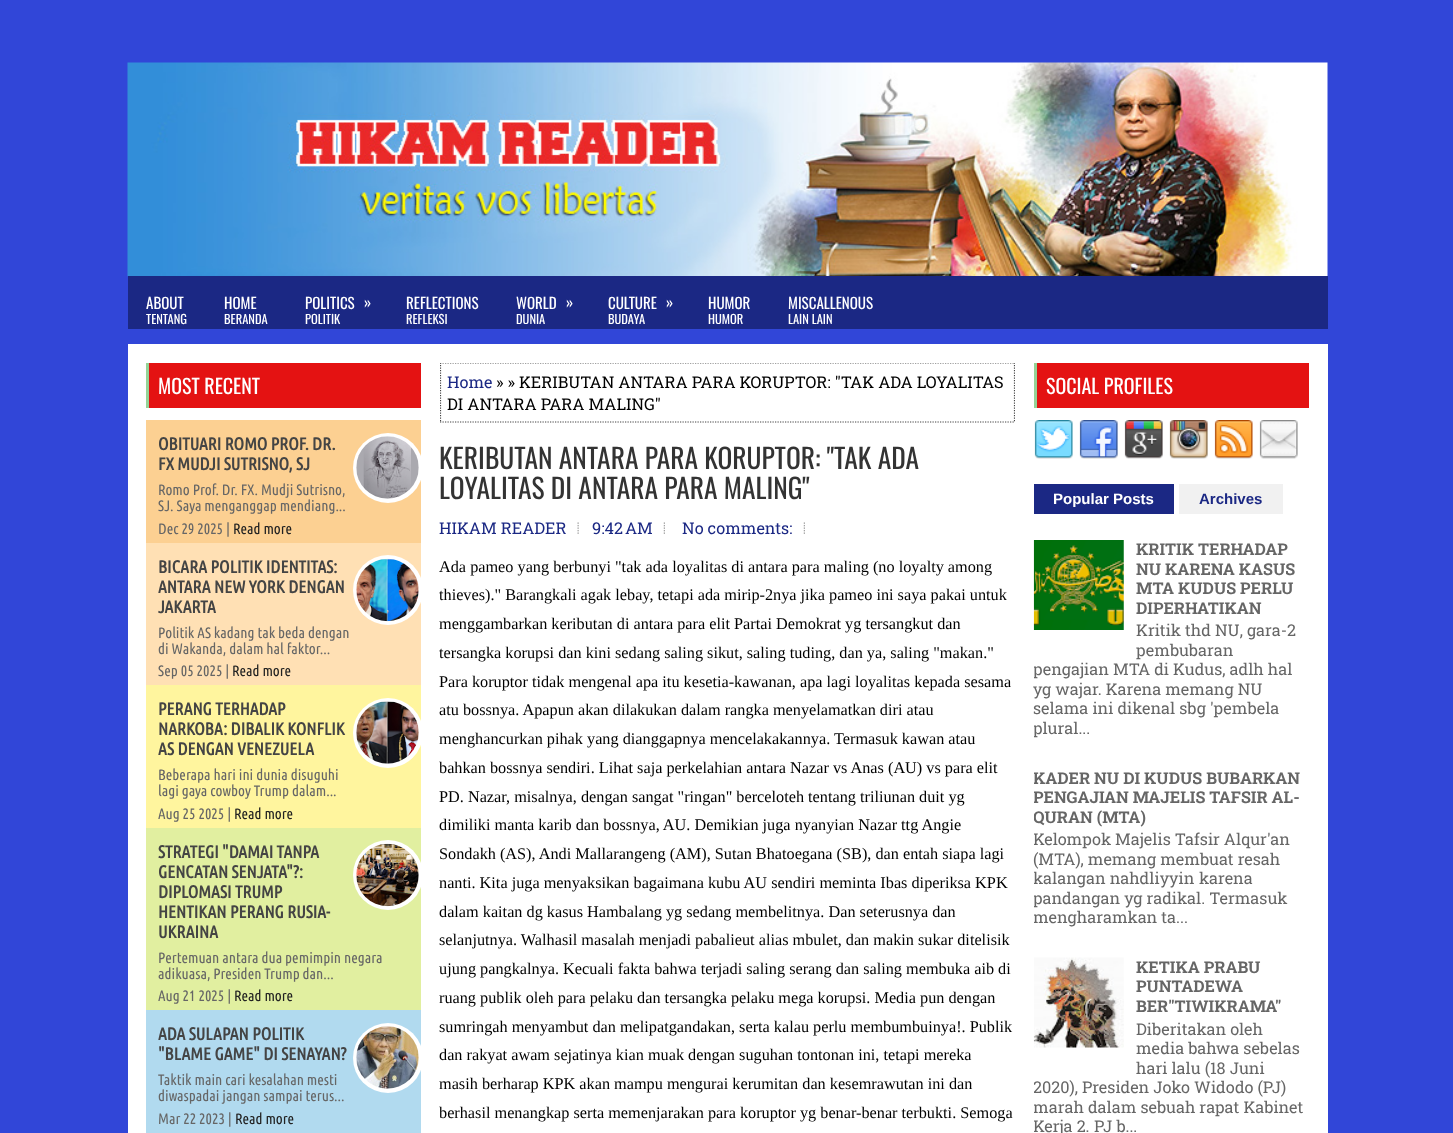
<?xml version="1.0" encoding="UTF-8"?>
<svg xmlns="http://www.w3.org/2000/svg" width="1453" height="1133">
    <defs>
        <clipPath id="clip1"><rect x="146" y="363" width="275" height="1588"/></clipPath>
        <clipPath id="clip2"><rect x="440" y="363" width="575" height="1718"/></clipPath>
        <clipPath id="clip3"><rect x="1034" y="363" width="275" height="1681"/></clipPath>
    </defs>
    <rect width="100%" height="100%" fill="#3146D8"/>
    <image x="127" y="62" width="1201" height="215" href="img_01.png"/>
    <rect x="128" y="276" width="1200" height="53" fill="#1B2884"/>
    <text x="146" y="309" font-family="Oswald" font-size="15" fill="#FFFFFF">ABOUT</text>
    <text x="146" y="324" font-family="Oswald" font-size="12.5" fill="#FFFFFF">TENTANG</text>
    <text x="224" y="309" font-family="Oswald" font-size="15" fill="#FFFFFF">HOME</text>
    <text x="224" y="324" font-family="Oswald" font-size="12.5" fill="#FFFFFF">BERANDA</text>
    <text x="305" y="309" font-family="Oswald" font-size="15" fill="#FFFFFF">POLITICS</text>
    <text x="364" y="308" font-family="Oswald" font-size="15" fill="#FFFFFF">»</text>
    <text x="305" y="324" font-family="Oswald" font-size="12.5" fill="#FFFFFF">POLITIK</text>
    <text x="406" y="309" font-family="Oswald" font-size="15" fill="#FFFFFF">REFLECTIONS</text>
    <text x="406" y="324" font-family="Oswald" font-size="12.5" fill="#FFFFFF">REFLEKSI</text>
    <text x="516" y="309" font-family="Oswald" font-size="15" fill="#FFFFFF">WORLD</text>
    <text x="566" y="308" font-family="Oswald" font-size="15" fill="#FFFFFF">»</text>
    <text x="516" y="324" font-family="Oswald" font-size="12.5" fill="#FFFFFF">DUNIA</text>
    <text x="608" y="309" font-family="Oswald" font-size="15" fill="#FFFFFF">CULTURE</text>
    <text x="666" y="308" font-family="Oswald" font-size="15" fill="#FFFFFF">»</text>
    <text x="608" y="324" font-family="Oswald" font-size="12.5" fill="#FFFFFF">BUDAYA</text>
    <text x="708" y="309" font-family="Oswald" font-size="15" fill="#FFFFFF">HUMOR</text>
    <text x="708" y="324" font-family="Oswald" font-size="12.5" fill="#FFFFFF">HUMOR</text>
    <text x="788" y="309" font-family="Oswald" font-size="15" fill="#FFFFFF">MISCALLENOUS</text>
    <text x="788" y="324" font-family="Oswald" font-size="12.5" fill="#FFFFFF">LAIN LAIN</text>
    <rect x="128" y="344" width="1200" height="789" fill="#FFFFFF"/>
    <rect x="149" y="363" width="272" height="45" fill="#E41212"/>
    <rect x="146" y="363" width="3" height="45" fill="#95D396"/>
    <text x="158" y="394" font-family="Oswald" font-size="20" fill="#FFFFFF">MOST RECENT</text>
    <rect x="146" y="420" width="275" height="123" fill="#FCD092"/>
    <text font-family="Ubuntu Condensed" font-size="17.5" font-weight="700" fill="#444444">
        <tspan x="158" y="450">OBITUARI ROMO PROF. DR.</tspan>
        <tspan x="158" y="470">FX MUDJI SUTRISNO, SJ</tspan>
    </text>
    <g clip-path="url(#clip1)">
        <circle cx="388" cy="468" r="35" fill="#FFFFFF"/>
    </g>
    <image x="356" y="436" width="63" height="63" href="img_02.png"/>
    <text font-family="Ubuntu Condensed" font-size="15" fill="#666666">
        <tspan x="158" y="495">Romo Prof. Dr. FX. Mudji Sutrisno,</tspan>
        <tspan x="158" y="511">SJ. Saya menganggap mendiang...</tspan>
        <tspan x="158" y="534">Dec 29 2025 |</tspan>
    </text>
    <text x="233" y="534" font-family="Ubuntu Condensed" font-size="15" fill="#222222">Read more</text>
    <rect x="146" y="543" width="275" height="142" fill="#FFE0B4"/>
    <text font-family="Ubuntu Condensed" font-size="17.5" font-weight="700" fill="#444444">
        <tspan x="158" y="573">BICARA POLITIK IDENTITAS:</tspan>
        <tspan x="158" y="593">ANTARA NEW YORK DENGAN</tspan>
        <tspan x="158" y="613">JAKARTA</tspan>
    </text>
    <g clip-path="url(#clip1)">
        <circle cx="388" cy="590" r="35" fill="#FFFFFF"/>
    </g>
    <image x="356" y="558" width="63" height="64" href="img_03.png"/>
    <text font-family="Ubuntu Condensed" font-size="15" fill="#666666">
        <tspan x="158" y="638">Politik AS kadang tak beda dengan</tspan>
        <tspan x="158" y="654">di Wakanda, dalam hal faktor...</tspan>
        <tspan x="158" y="676">Sep 05 2025 |</tspan>
    </text>
    <text x="232" y="676" font-family="Ubuntu Condensed" font-size="15" fill="#222222">Read more</text>
    <rect x="146" y="685" width="275" height="143" fill="#FFF59E"/>
    <text font-family="Ubuntu Condensed" font-size="17.5" font-weight="700" fill="#444444">
        <tspan x="158" y="715">PERANG TERHADAP</tspan>
        <tspan x="158" y="735">NARKOBA: DIBALIK KONFLIK</tspan>
        <tspan x="158" y="755">AS DENGAN VENEZUELA</tspan>
    </text>
    <g clip-path="url(#clip1)">
        <circle cx="388" cy="733" r="35" fill="#FFFFFF"/>
    </g>
    <image x="356" y="701" width="63" height="63" href="img_04.png"/>
    <text font-family="Ubuntu Condensed" font-size="15" fill="#666666">
        <tspan x="158" y="780">Beberapa hari ini dunia disuguhi</tspan>
        <tspan x="158" y="796">lagi gaya cowboy Trump dalam...</tspan>
        <tspan x="158" y="819">Aug 25 2025 |</tspan>
    </text>
    <text x="234" y="819" font-family="Ubuntu Condensed" font-size="15" fill="#222222">Read more</text>
    <rect x="146" y="828" width="275" height="182" fill="#E1EFA0"/>
    <text font-family="Ubuntu Condensed" font-size="17.5" font-weight="700" fill="#444444">
        <tspan x="158" y="858">STRATEGI "DAMAI TANPA</tspan>
        <tspan x="158" y="878">GENCATAN SENJATA"?:</tspan>
        <tspan x="158" y="898">DIPLOMASI TRUMP</tspan>
        <tspan x="158" y="918">HENTIKAN PERANG RUSIA-</tspan>
        <tspan x="158" y="938">UKRAINA</tspan>
    </text>
    <g clip-path="url(#clip1)">
        <circle cx="388" cy="875" r="35" fill="#FFFFFF"/>
    </g>
    <image x="356" y="843" width="63" height="64" href="img_05.png"/>
    <text font-family="Ubuntu Condensed" font-size="15" fill="#666666">
        <tspan x="158" y="963">Pertemuan antara dua pemimpin negara</tspan>
        <tspan x="158" y="979">adikuasa, Presiden Trump dan...</tspan>
        <tspan x="158" y="1001">Aug 21 2025 |</tspan>
    </text>
    <text x="234" y="1001" font-family="Ubuntu Condensed" font-size="15" fill="#222222">Read more</text>
    <rect x="146" y="1010" width="275" height="123" fill="#B1DAEF"/>
    <text font-family="Ubuntu Condensed" font-size="17.5" font-weight="700" fill="#444444">
        <tspan x="158" y="1040">ADA SULAPAN POLITIK</tspan>
        <tspan x="158" y="1060">"BLAME GAME" DI SENAYAN?</tspan>
    </text>
    <g clip-path="url(#clip1)">
        <circle cx="388" cy="1058" r="35" fill="#FFFFFF"/>
    </g>
    <image x="356" y="1026" width="63" height="63" href="img_06.png"/>
    <text font-family="Ubuntu Condensed" font-size="15" fill="#666666">
        <tspan x="158" y="1085">Taktik main cari kesalahan mesti</tspan>
        <tspan x="158" y="1101">diwaspadai jangan sampai terus...</tspan>
        <tspan x="158" y="1124">Mar 22 2023 |</tspan>
    </text>
    <text x="235" y="1124" font-family="Ubuntu Condensed" font-size="15" fill="#222222">Read more</text>
    <g clip-path="url(#clip2)">
        <path d="M 440 363 H 1015" fill="none" stroke="#444444" stroke-width="1.2" stroke-dasharray="1.25 1.25"/>
        <path d="M 1014.5 362.5 V 422.5" fill="none" stroke="#444444" stroke-width="1.2" stroke-dasharray="1.25 1.25"/>
    </g>
    <path d="M 440 422 H 1015" fill="none" stroke="#444444" stroke-width="1.2" stroke-dasharray="1.25 1.25"/>
    <g clip-path="url(#clip2)">
        <path d="M 440.5 362.5 V 422.5" fill="none" stroke="#444444" stroke-width="1.2" stroke-dasharray="1.25 1.25"/>
    </g>
    <text x="447" y="388" font-family="Roboto Slab" font-size="16.25" fill="#1B2884">Home</text>
    <text x="496" y="388" font-family="Roboto Slab" font-size="16.25" fill="#000000">» » KERIBUTAN ANTARA PARA KORUPTOR: "TAK ADA LOYALITAS</text>
    <text x="447" y="410" font-family="Roboto Slab" font-size="16.25" fill="#000000">DI ANTARA PARA MALING"</text>
    <text font-family="Oswald" font-size="27.5" fill="#333333">
        <tspan x="439" y="469">KERIBUTAN ANTARA PARA KORUPTOR: "TAK ADA</tspan>
        <tspan x="439" y="499">LOYALITAS DI ANTARA PARA MALING"</tspan>
    </text>
    <text x="439" y="534" font-family="Roboto Slab" font-size="16.25" fill="#1B2884">HIKAM READER</text>
    <image x="577" y="522" width="2" height="12" href="img_07.png"/>
    <text x="592" y="534" font-family="Roboto Slab" font-size="16.25" fill="#1B2884">9:42 AM</text>
    <image x="663" y="522" width="2" height="12" href="img_08.png"/>
    <text x="682" y="534" font-family="Roboto Slab" font-size="16.25" fill="#1B2884">No comments:</text>
    <image x="803" y="522" width="2" height="12" href="img_08.png"/>
    <text font-family="Liberation Serif" font-size="16.25" fill="#000000">
        <tspan x="439" y="572">Ada pameo yang berbunyi "tak ada loyalitas di antara para maling (no loyalty among</tspan>
        <tspan x="439" y="600">thieves)." Barangkali agak lebay, tetapi ada mirip-2nya jika pameo ini saya pakai untuk</tspan>
        <tspan x="439" y="629">menggambarkan keributan di antara para elit Partai Demokrat yg tersangkut dan</tspan>
        <tspan x="439" y="658">tersangka korupsi dan kini sedang saling sikut, saling tuding, dan ya, saling "makan."</tspan>
        <tspan x="439" y="687">Para koruptor tidak mengenal apa itu kesetia-kawanan, apa lagi loyalitas kepada sesama</tspan>
        <tspan x="439" y="715">atu bossnya. Apapun akan dilakukan dalam rangka menyelamatkan diri atau</tspan>
        <tspan x="439" y="744">menghancurkan pihak yang dianggapnya mencelakakannya. Termasuk kawan atau</tspan>
        <tspan x="439" y="773">bahkan bossnya sendiri. Lihat saja perkelahian antara Nazar vs Anas (AU) vs para elit</tspan>
        <tspan x="439" y="802">PD. Nazar, misalnya, dengan sangat "ringan" berceloteh tentang triliunan duit yg</tspan>
        <tspan x="439" y="830">dimiliki manta karib dan bossnya, AU. Demikian juga nyanyian Nazar ttg Angie</tspan>
        <tspan x="439" y="859">Sondakh (AS), Andi Mallarangeng (AM), Sutan Bhatoegana (SB), dan entah siapa lagi</tspan>
        <tspan x="439" y="888">nanti. Kita juga menyaksikan bagaimana kubu AU sendiri meminta Ibas diperiksa KPK</tspan>
        <tspan x="439" y="917">dalam kaitan dg kasus Hambalang yg sedang membelitnya. Dan seterusnya dan</tspan>
        <tspan x="439" y="945">selanjutnya. Walhasil masalah menjadi pabalieut alias mbulet, dan makin sukar ditelisik</tspan>
        <tspan x="439" y="974">ujung pangkalnya. Kecuali fakta bahwa terjadi saling serang dan saling membuka aib di</tspan>
        <tspan x="439" y="1003">ruang publik oleh para pelaku dan tersangka pelaku mega korupsi. Media pun dengan</tspan>
        <tspan x="439" y="1032">sumringah menyambut dan melipatgandakan, serta kalau perlu membumbuinya!. Publik</tspan>
        <tspan x="439" y="1060">dan rakyat awam sejatinya kian muak dengan suguhan tontonan ini, tetapi mereka</tspan>
        <tspan x="439" y="1089">masih berharap KPK akan mampu mengurai kerumitan dan kesemrawutan ini dan</tspan>
        <tspan x="439" y="1118">berhasil menangkap serta memenjarakan para koruptor yg benar-benar terbukti. Semoga</tspan>
    </text>
    <rect x="1037" y="363" width="272" height="45" fill="#E41212"/>
    <rect x="1034" y="363" width="3" height="45" fill="#95D396"/>
    <text x="1046" y="394" font-family="Oswald" font-size="20" fill="#FFFFFF">SOCIAL PROFILES</text>
    <image x="1034" y="420" width="39" height="39" href="img_09.png"/>
    <image x="1079" y="420" width="39" height="39" href="img_10.png"/>
    <image x="1124" y="420" width="39" height="39" href="img_11.png"/>
    <image x="1169" y="420" width="39" height="39" href="img_12.png"/>
    <image x="1214" y="420" width="39" height="39" href="img_13.png"/>
    <image x="1259" y="420" width="39" height="39" href="img_14.png"/>
    <rect x="1034" y="484" width="140" height="30" fill="#1B2884"/>
    <text x="1053" y="504" font-family="Liberation Sans" font-size="15" font-weight="700" fill="#FFFFFF">Popular Posts</text>
    <rect x="1179" y="484" width="104" height="30" fill="#F1F1F1"/>
    <text x="1199" y="504" font-family="Liberation Sans" font-size="15" font-weight="700" fill="#1B2884">Archives</text>
    <image x="1033" y="540" width="91" height="90" href="img_15.png"/>
    <text font-family="Roboto Slab" font-size="16.25" font-weight="700" fill="#666666">
        <tspan x="1136" y="555">KRITIK TERHADAP</tspan>
        <tspan x="1136" y="575">NU KARENA KASUS</tspan>
        <tspan x="1136" y="594">MTA KUDUS PERLU</tspan>
        <tspan x="1136" y="614">DIPERHATIKAN</tspan>
    </text>
    <text font-family="Roboto Slab" font-size="16.25" fill="#666666">
        <tspan x="1136" y="636">Kritik thd NU, gara-2</tspan>
        <tspan x="1136" y="656">pembubaran</tspan>
    </text>
    <g clip-path="url(#clip3)">
        <text x="1033" y="675" font-family="Roboto Slab" font-size="16.25" fill="#666666">pengajian MTA di Kudus, adlh hal</text>
    </g>
    <text font-family="Roboto Slab" font-size="16.25" fill="#666666">
        <tspan x="1033" y="695">yg wajar. Karena memang NU</tspan>
        <tspan x="1033" y="714">selama ini dikenal sbg 'pembela</tspan>
    </text>
    <g clip-path="url(#clip3)">
        <text x="1033" y="734" font-family="Roboto Slab" font-size="16.25" fill="#666666">plural...</text>
        <text font-family="Roboto Slab" font-size="16.25" font-weight="700" fill="#666666">
            <tspan x="1033" y="784">KADER NU DI KUDUS BUBARKAN</tspan>
            <tspan x="1033" y="803">PENGAJIAN MAJELIS TAFSIR AL-</tspan>
            <tspan x="1033" y="823">QURAN (MTA)</tspan>
        </text>
        <text x="1033" y="845" font-family="Roboto Slab" font-size="16.25" fill="#666666">Kelompok</text>
    </g>
    <text x="1115" y="845" font-family="Roboto Slab" font-size="16.25" fill="#666666">Majelis Tafsir Alqur'an</text>
    <text x="1033" y="865" font-family="Roboto Slab" font-size="16.25" fill="#666666">(MTA), memang membuat resah</text>
    <g clip-path="url(#clip3)">
        <text x="1033" y="884" font-family="Roboto Slab" font-size="16.25" fill="#666666">kalangan nahdliyyin</text>
    </g>
    <text x="1199" y="884" font-family="Roboto Slab" font-size="16.25" fill="#666666">karena</text>
    <g clip-path="url(#clip3)">
        <text font-family="Roboto Slab" font-size="16.25" fill="#666666">
            <tspan x="1033" y="904">pandangan yg radikal. Termasuk</tspan>
            <tspan x="1033" y="923">mengharamkan ta...</tspan>
        </text>
    </g>
    <image x="1033" y="957" width="91" height="91" href="img_16.png"/>
    <text font-family="Roboto Slab" font-size="16.25" font-weight="700" fill="#666666">
        <tspan x="1136" y="973">KETIKA PRABU</tspan>
        <tspan x="1136" y="992">PUNTADEWA</tspan>
        <tspan x="1136" y="1012">BER"TIWIKRAMA"</tspan>
    </text>
    <text font-family="Roboto Slab" font-size="16.25" fill="#666666">
        <tspan x="1136" y="1035">Diberitakan oleh</tspan>
        <tspan x="1136" y="1054">media bahwa sebelas</tspan>
        <tspan x="1136" y="1074">hari lalu (18 Juni</tspan>
    </text>
    <g clip-path="url(#clip3)">
        <text font-family="Roboto Slab" font-size="16.25" fill="#666666">
            <tspan x="1033" y="1093">2020), Presiden Joko Widodo (PJ)</tspan>
            <tspan x="1033" y="1113">marah dalam sebuah rapat Kabinet</tspan>
            <tspan x="1033" y="1132">Kerja 2.</tspan>
        </text>
    </g>
    <text x="1094" y="1132" font-family="Roboto Slab" font-size="16.25" fill="#666666">PJ b...</text>
</svg>
